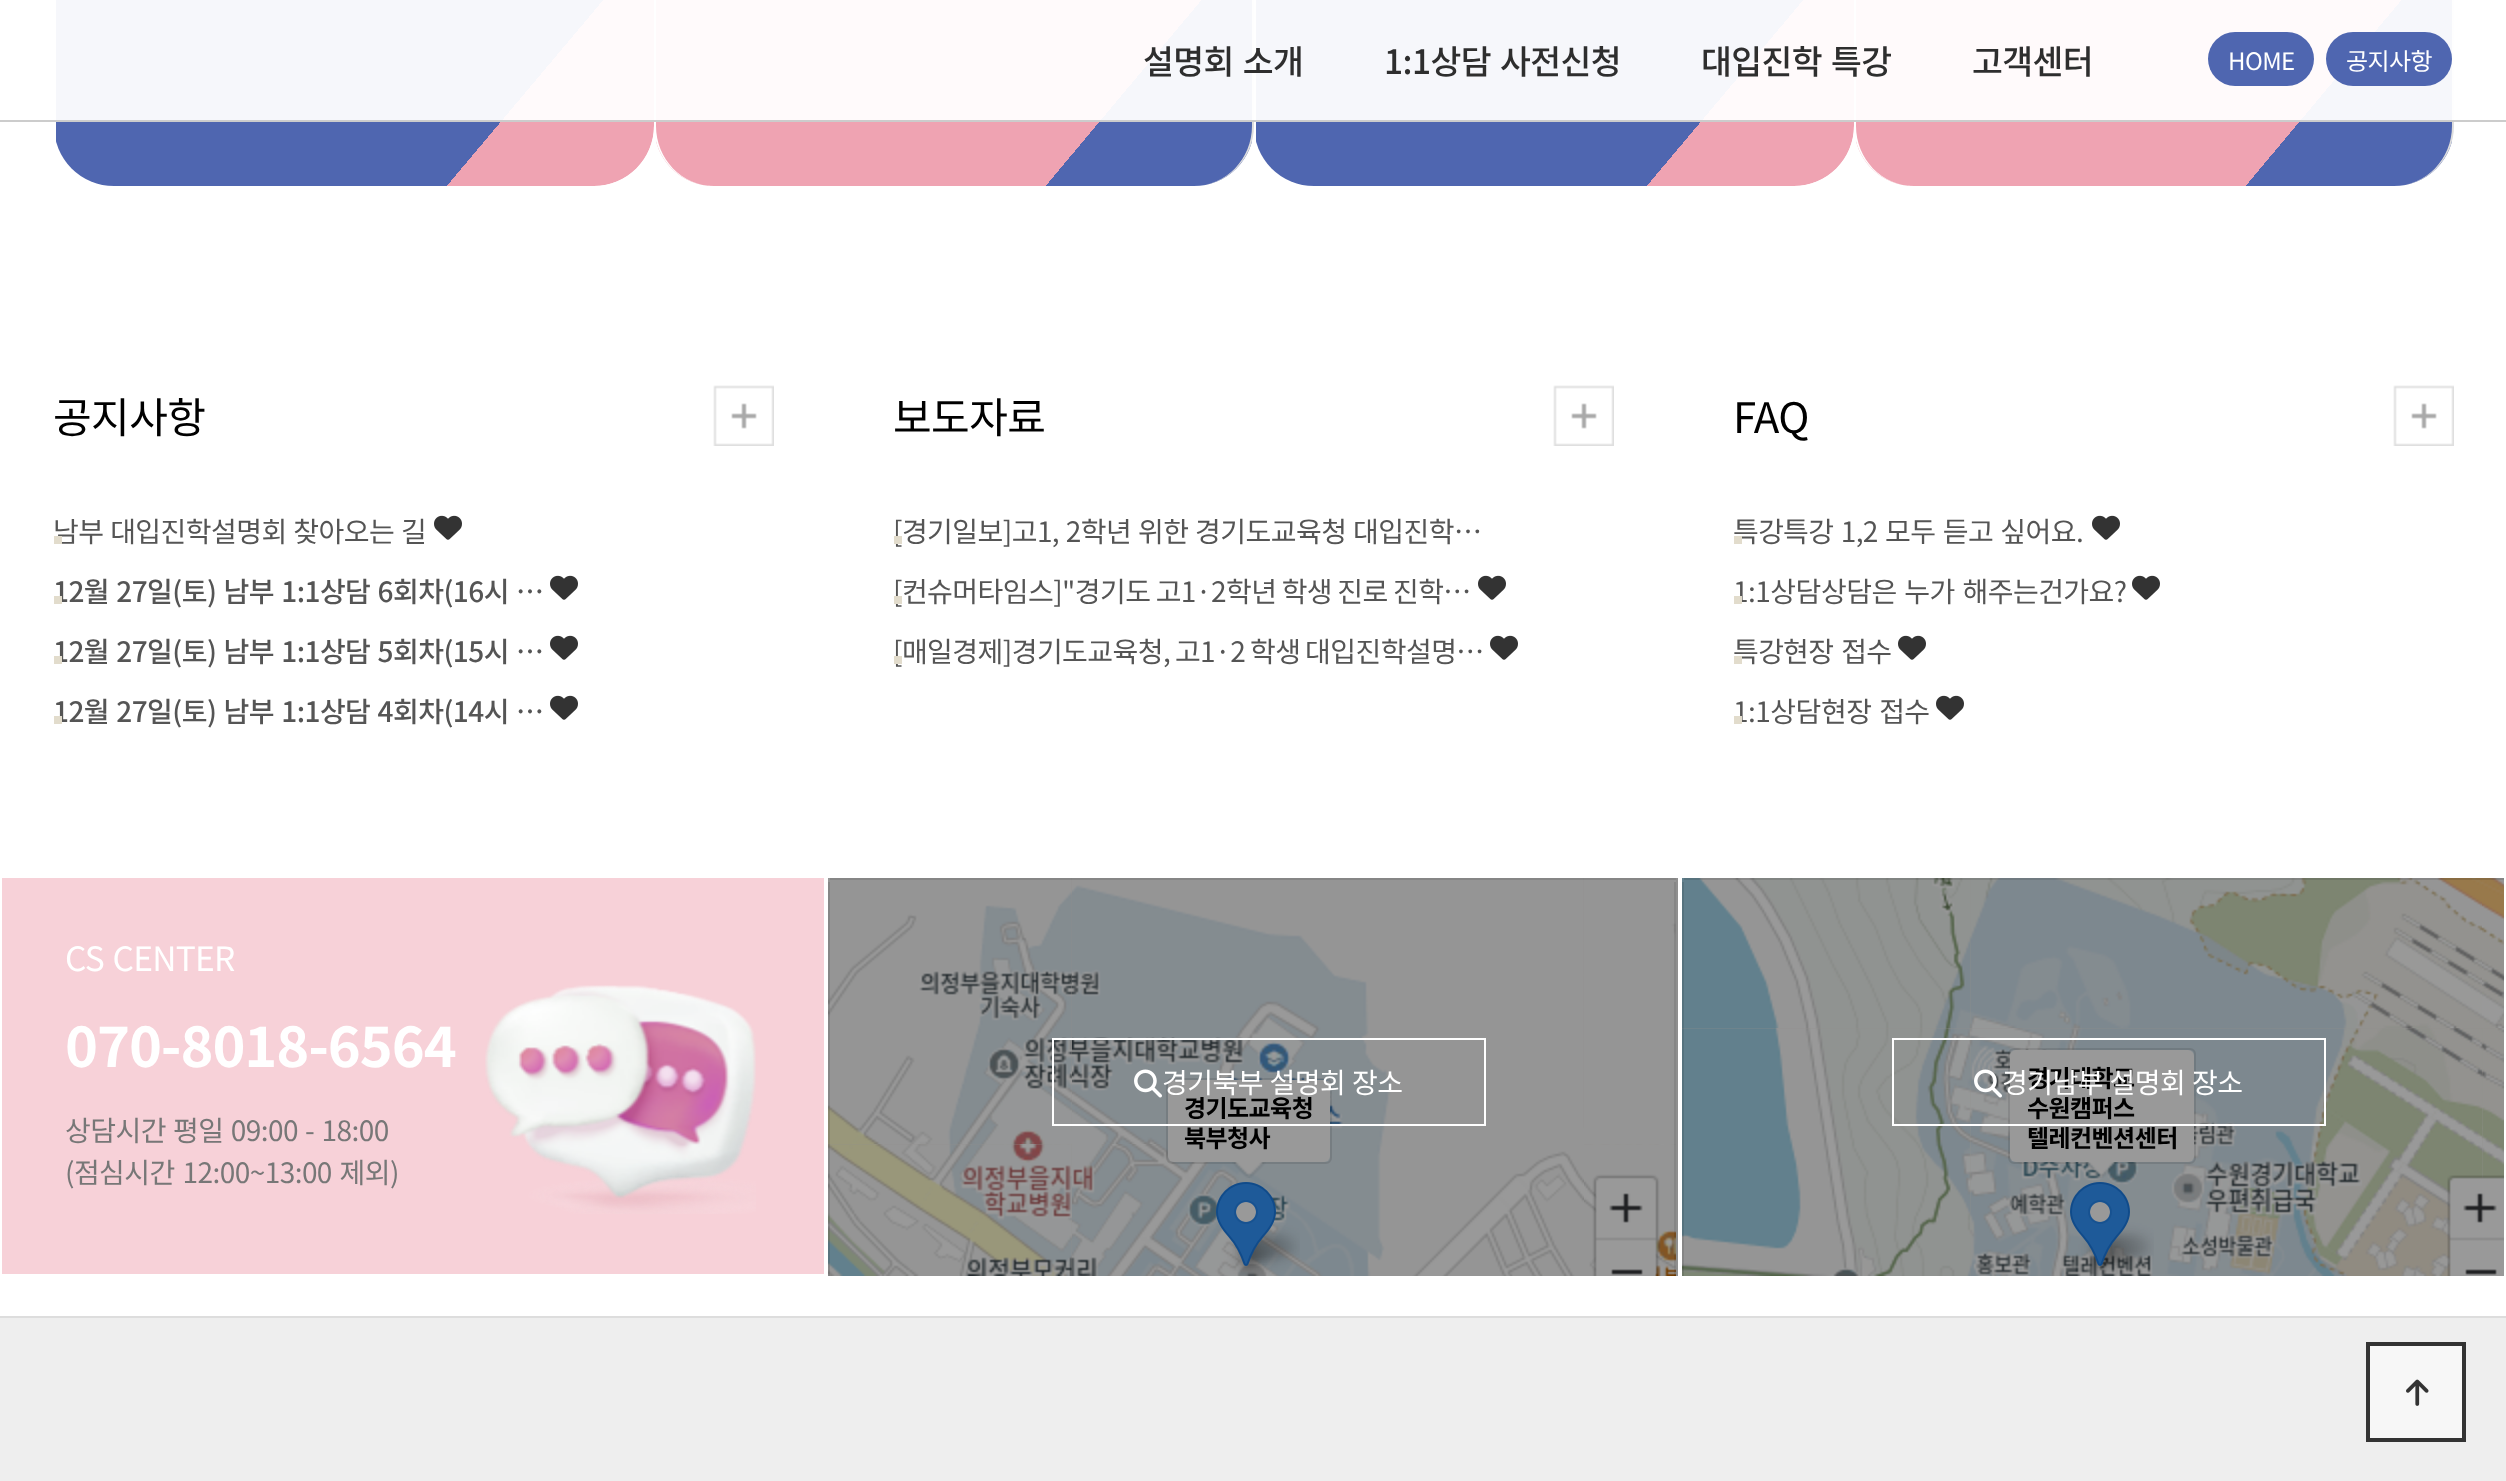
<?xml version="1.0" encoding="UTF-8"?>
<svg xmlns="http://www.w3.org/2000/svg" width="2506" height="1481">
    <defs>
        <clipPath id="clip1"><rect x="54" y="-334" width="600" height="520" rx="60"/></clipPath>
        <linearGradient id="g1" gradientUnits="userSpaceOnUse" x1="52" y1="-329" x2="658" y2="181"><stop offset="0" stop-color="#4F66B0"/><stop offset="0.8" stop-color="#4F66B0"/><stop offset="0.8" stop-color="#EFA3B2"/><stop offset="1" stop-color="#EFA3B2"/></linearGradient>
        <clipPath id="clip2"><rect x="654" y="-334" width="600" height="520" rx="60"/></clipPath>
        <linearGradient id="g2" gradientUnits="userSpaceOnUse" x1="651" y1="-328" x2="1257" y2="180"><stop offset="0" stop-color="#EFA3B2"/><stop offset="0.8" stop-color="#EFA3B2"/><stop offset="0.8" stop-color="#4F66B0"/><stop offset="1" stop-color="#4F66B0"/></linearGradient>
        <clipPath id="clip3"><rect x="1254" y="-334" width="600" height="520" rx="60"/></clipPath>
        <linearGradient id="g3" gradientUnits="userSpaceOnUse" x1="1252" y1="-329" x2="1858" y2="181"><stop offset="0" stop-color="#4F66B0"/><stop offset="0.8" stop-color="#4F66B0"/><stop offset="0.8" stop-color="#EFA3B2"/><stop offset="1" stop-color="#EFA3B2"/></linearGradient>
        <clipPath id="clip4"><rect x="1854" y="-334" width="600" height="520" rx="60"/></clipPath>
        <linearGradient id="g4" gradientUnits="userSpaceOnUse" x1="1851" y1="-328" x2="2457" y2="180"><stop offset="0" stop-color="#EFA3B2"/><stop offset="0.8" stop-color="#EFA3B2"/><stop offset="0.8" stop-color="#4F66B0"/><stop offset="1" stop-color="#4F66B0"/></linearGradient>
    </defs>
    <rect width="100%" height="100%" fill="#FFFFFF"/>
    <g clip-path="url(#clip1)">
        <path d="M 56 -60 H 594 C 627 -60 654 -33 654 0 V 126 C 654 159 627 186 594 186 H 56 Z" fill="url(#g1)"/>
    </g>
    <g clip-path="url(#clip2)">
        <rect x="656" y="0" width="596" height="186" fill="url(#g2)"/>
    </g>
    <path d="M 1254 -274 C 1254 -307 1227 -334 1194 -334 C 1226 -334 1252 -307 1252 -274 V 126 C 1252 159 1226 186 1194 186 C 1227 186 1254 159 1254 126 Z" fill="#DDDDDD"/>
    <path d="M 714 -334 C 681 -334 654 -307 654 -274 V 126 C 654 159 681 186 714 186 C 682 186 656 159 656 126 V -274 C 656 -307 682 -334 714 -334 Z" fill="#FFFFFF"/>
    <g clip-path="url(#clip3)">
        <path d="M 1256 -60 H 1794 C 1827 -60 1854 -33 1854 0 V 126 C 1854 159 1827 186 1794 186 H 1256 Z" fill="url(#g3)"/>
    </g>
    <g clip-path="url(#clip4)">
        <rect x="1856" y="0" width="596" height="186" fill="url(#g4)"/>
    </g>
    <path d="M 2454 -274 C 2454 -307 2427 -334 2394 -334 C 2426 -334 2452 -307 2452 -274 V 126 C 2452 159 2426 186 2394 186 C 2427 186 2454 159 2454 126 Z" fill="#DDDDDD"/>
    <path d="M 1914 -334 C 1881 -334 1854 -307 1854 -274 V 126 C 1854 159 1881 186 1914 186 C 1882 186 1856 159 1856 126 V -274 C 1856 -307 1882 -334 1914 -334 Z" fill="#FFFFFF"/>
    <rect x="56" y="0" width="2398" height="120" fill="#FFFFFF" fill-opacity="0.95"/>
    <rect x="0" y="120" width="2506" height="2" fill="#CCCCCC"/>
    <text x="1143" y="74" word-spacing="2" font-family="Noto Sans KR" font-size="33.5" font-weight="500" letter-spacing="-0.55" fill="#2E2E2E">설명회 소개</text>
    <text x="1384" y="74" word-spacing="2" font-family="Noto Sans KR" font-size="33.5" font-weight="500" letter-spacing="-0.55" fill="#2E2E2E">1:1상담 사전신청</text>
    <text x="1701" y="74" word-spacing="2" font-family="Noto Sans KR" font-size="33.5" font-weight="500" letter-spacing="-0.55" fill="#2E2E2E">대입진학 특강</text>
    <text x="1972" y="74" font-family="Noto Sans KR" font-size="33.5" font-weight="500" letter-spacing="-0.55" fill="#2E2E2E">고객센터</text>
    <rect x="2208" y="32" width="106" height="54" rx="27" fill="#4F66B0"/>
    <text x="2228" y="70" font-family="Noto Sans KR" font-size="24" letter-spacing="-0.55" fill="#FFFFFF">HOME</text>
    <rect x="2326" y="32" width="126" height="54" rx="27" fill="#4F66B0"/>
    <text x="2346" y="70" font-family="Noto Sans KR" font-size="24" letter-spacing="-0.55" fill="#FFFFFF">공지사항</text>
    <text x="53" y="433" font-family="Noto Sans KR" font-size="42" letter-spacing="-0.55" fill="#000000">공지사항</text>
    <image x="713" y="385" width="61" height="61" href="img_01.png"/>
    <text x="53" y="542" word-spacing="1" font-family="Noto Sans KR" font-size="28" letter-spacing="-0.55" fill="#555555">남부 대입진학설명회 찾아오는 길</text>
    <image x="434" y="515" width="28" height="25" href="img_02.png"/>
    <rect x="54" y="536" width="8" height="8" fill="#E2DCCC"/>
    <text x="53" y="602" word-spacing="1.5" font-family="Noto Sans KR" font-size="28" font-weight="500" letter-spacing="-0.55" fill="#555555">12월 27일(토) 남부 1:1상담 6회차(16시 …</text>
    <image x="550" y="575" width="28" height="25" href="img_02.png"/>
    <rect x="54" y="596" width="8" height="8" fill="#E2DCCC"/>
    <text x="53" y="662" word-spacing="1.5" font-family="Noto Sans KR" font-size="28" font-weight="500" letter-spacing="-0.55" fill="#555555">12월 27일(토) 남부 1:1상담 5회차(15시 …</text>
    <image x="550" y="635" width="28" height="25" href="img_02.png"/>
    <rect x="54" y="656" width="8" height="8" fill="#E2DCCC"/>
    <text x="53" y="722" word-spacing="1.5" font-family="Noto Sans KR" font-size="28" font-weight="500" letter-spacing="-0.55" fill="#555555">12월 27일(토) 남부 1:1상담 4회차(14시 …</text>
    <image x="550" y="695" width="28" height="25" href="img_02.png"/>
    <rect x="54" y="716" width="8" height="8" fill="#E2DCCC"/>
    <text x="893" y="433" font-family="Noto Sans KR" font-size="42" letter-spacing="-0.55" fill="#000000">보도자료</text>
    <image x="1553" y="385" width="61" height="61" href="img_01.png"/>
    <text x="893" y="542" word-spacing="1" font-family="Noto Sans KR" font-size="28" letter-spacing="-0.55" fill="#555555">[경기일보]고1, 2학년 위한 경기도교육청 대입진학…</text>
    <rect x="894" y="536" width="8" height="8" fill="#E2DCCC"/>
    <text x="893" y="602" word-spacing="-0.5" font-family="Noto Sans KR" font-size="28" letter-spacing="-0.55" fill="#555555">[컨슈머타임스]"경기도 고1·2학년 학생 진로 진학…</text>
    <image x="1478" y="575" width="28" height="25" href="img_02.png"/>
    <rect x="894" y="596" width="8" height="8" fill="#E2DCCC"/>
    <text x="893" y="662" word-spacing="-1" font-family="Noto Sans KR" font-size="28" letter-spacing="-0.55" fill="#555555">[매일경제]경기도교육청, 고1·2 학생 대입진학설명…</text>
    <image x="1490" y="635" width="28" height="25" href="img_02.png"/>
    <rect x="894" y="656" width="8" height="8" fill="#E2DCCC"/>
    <text x="1733" y="433" font-family="Noto Sans KR" font-size="42" letter-spacing="-0.55" fill="#000000">FAQ</text>
    <image x="2393" y="385" width="61" height="61" href="img_01.png"/>
    <text x="1733" y="542" font-family="Noto Sans KR" font-size="28" letter-spacing="-0.55" fill="#555555">특강</text>
    <text x="1783" y="542" word-spacing="1.5" font-family="Noto Sans KR" font-size="28" letter-spacing="-0.55" fill="#555555">특강 1,2 모두 듣고 싶어요.</text>
    <image x="2092" y="515" width="28" height="25" href="img_02.png"/>
    <rect x="1734" y="536" width="8" height="8" fill="#E2DCCC"/>
    <text x="1733" y="602" font-family="Noto Sans KR" font-size="28" letter-spacing="-0.55" fill="#555555">1:1상담</text>
    <text x="1821" y="602" word-spacing="2" font-family="Noto Sans KR" font-size="28" letter-spacing="-0.55" fill="#555555">상담은 누가 해주는건가요?</text>
    <image x="2132" y="575" width="28" height="25" href="img_02.png"/>
    <rect x="1734" y="596" width="8" height="8" fill="#E2DCCC"/>
    <text x="1733" y="662" font-family="Noto Sans KR" font-size="28" letter-spacing="-0.55" fill="#555555">특강</text>
    <text x="1783" y="662" word-spacing="2" font-family="Noto Sans KR" font-size="28" letter-spacing="-0.55" fill="#555555">현장 접수</text>
    <image x="1898" y="635" width="28" height="25" href="img_02.png"/>
    <rect x="1734" y="656" width="8" height="8" fill="#E2DCCC"/>
    <text x="1733" y="722" font-family="Noto Sans KR" font-size="28" letter-spacing="-0.55" fill="#555555">1:1상담</text>
    <text x="1821" y="722" word-spacing="2" font-family="Noto Sans KR" font-size="28" letter-spacing="-0.55" fill="#555555">현장 접수</text>
    <image x="1936" y="695" width="28" height="25" href="img_02.png"/>
    <rect x="1734" y="716" width="8" height="8" fill="#E2DCCC"/>
    <rect x="2" y="878" width="822" height="396" fill="#F7D1D8"/>
    <image x="485" y="985" width="271" height="229" href="img_03.png"/>
    <text x="65" y="971" word-spacing="2" font-family="Noto Sans KR" font-size="33.5" letter-spacing="-0.75" fill="#FFFFFF">CS CENTER</text>
    <text x="65" y="1067" font-family="Noto Sans KR" font-size="56" font-weight="700" letter-spacing="-1.1" fill="#FFFFFF">070-8018-6564</text>
    <text font-family="Noto Sans KR" font-size="28" letter-spacing="-0.55" fill="#777777">
        <tspan x="65" y="1141" word-spacing="1.5">상담시간 평일 09:00 - 18:00</tspan>
        <tspan x="65" y="1183" word-spacing="2">(점심시간 12:00~13:00 제외)</tspan>
    </text>
    <rect x="1676" y="878" width="2" height="398" fill="#EEEEEE"/>
    <image x="828" y="878" width="848" height="398" href="img_05.png"/>
    <image x="828" y="1143" width="244" height="133" href="img_09.png"/>
    <image x="828" y="878" width="244" height="266" href="img_06.png"/>
    <image x="1072" y="878" width="512" height="266" href="img_07.png"/>
    <image x="1584" y="878" width="92" height="266" href="img_08.png"/>
    <rect x="830" y="878" width="846" height="2" fill="#000000" fill-opacity="0.1"/>
    <rect x="828" y="882" width="2" height="394" fill="#000000" fill-opacity="0.1"/>
    <image x="1072" y="1144" width="512" height="132" href="img_10.png"/>
    <image x="1584" y="1144" width="92" height="132" href="img_11.png"/>
    <rect x="1167" y="1079" width="164" height="84" rx="5" fill="none" stroke="#000000" stroke-opacity="0.1" stroke-width="2"/>
    <rect x="1168" y="1080" width="162" height="82" rx="6" fill="#FFFFFF"/>
    <text font-family="Noto Sans KR" font-size="24" font-weight="700" letter-spacing="-0.55" fill="#000000">
        <tspan x="1184" y="1117">경기도교육청</tspan>
        <tspan x="1184" y="1147">북부청사</tspan>
    </text>
    <image x="1232" y="1162" width="34" height="16" href="img_12.png"/>
    <image x="1216" y="1182" width="84" height="93" href="img_13.png"/>
    <rect x="1674" y="882" width="2" height="394" fill="#000000" fill-opacity="0.1"/>
    <image x="1592" y="1174" width="68" height="102" href="img_14.png"/>
    <image x="1609" y="1193" width="34" height="30" href="img_15.png"/>
    <image x="1611" y="1269" width="32" height="6" href="img_16.png"/>
    <rect x="828" y="878" width="850" height="398" fill="#000000" fill-opacity="0.4"/>
    <rect x="1053" y="1039" width="432" height="86" fill="none" stroke="#FFFFFF" stroke-width="2"/>
    <image x="1134" y="1069" width="28" height="29" href="img_04.png"/>
    <text x="1162" y="1093" word-spacing="1" font-family="Noto Sans KR" font-size="28" letter-spacing="-0.55" fill="#FFFFFF">경기북부 설명회 장소</text>
    <image x="1682" y="878" width="822" height="398" href="img_17.png"/>
    <image x="1682" y="1028" width="288" height="248" href="img_21.png"/>
    <image x="1969" y="1027" width="513" height="249" href="img_22.png"/>
    <image x="1682" y="878" width="288" height="150" href="img_18.png"/>
    <image x="1969" y="878" width="513" height="150" href="img_19.png"/>
    <image x="2482" y="878" width="22" height="150" href="img_20.png"/>
    <rect x="1684" y="878" width="820" height="2" fill="#000000" fill-opacity="0.1"/>
    <rect x="1682" y="882" width="2" height="394" fill="#000000" fill-opacity="0.1"/>
    <image x="2481" y="1028" width="23" height="151" href="img_23.png"/>
    <rect x="2009" y="1049" width="186" height="114" rx="5" fill="none" stroke="#000000" stroke-opacity="0.1" stroke-width="2"/>
    <rect x="2010" y="1050" width="184" height="112" rx="6" fill="#FFFFFF"/>
    <text font-family="Noto Sans KR" font-size="24" font-weight="700" letter-spacing="-0.55" fill="#000000">
        <tspan x="2027" y="1087">경기대학교</tspan>
        <tspan x="2027" y="1117">수원캠퍼스</tspan>
        <tspan x="2027" y="1147">텔레컨벤션센터</tspan>
    </text>
    <image x="2084" y="1162" width="34" height="16" href="img_24.png"/>
    <image x="2070" y="1182" width="84" height="93" href="img_25.png"/>
    <image x="2447" y="1175" width="57" height="101" href="img_26.png"/>
    <image x="2463" y="1193" width="34" height="30" href="img_15.png"/>
    <image x="2465" y="1269" width="32" height="6" href="img_16.png"/>
    <rect x="1682" y="878" width="822" height="398" fill="#000000" fill-opacity="0.4"/>
    <rect x="1893" y="1039" width="432" height="86" fill="none" stroke="#FFFFFF" stroke-width="2"/>
    <image x="1974" y="1069" width="28" height="29" href="img_27.png"/>
    <text x="2002" y="1093" word-spacing="1" font-family="Noto Sans KR" font-size="28" letter-spacing="-0.55" fill="#FFFFFF">경기남부 설명회 장소</text>
    <rect x="0" y="1318" width="2506" height="163" fill="#EEEEEE"/>
    <rect x="0" y="1316" width="2506" height="2" fill="#DDDDDD"/>
    <rect x="2368" y="1344" width="96" height="96" fill="#F7F7F7" stroke="#333333" stroke-width="4"/>
    <image x="2406" y="1379" width="23" height="27" href="img_28.png"/>
</svg>
